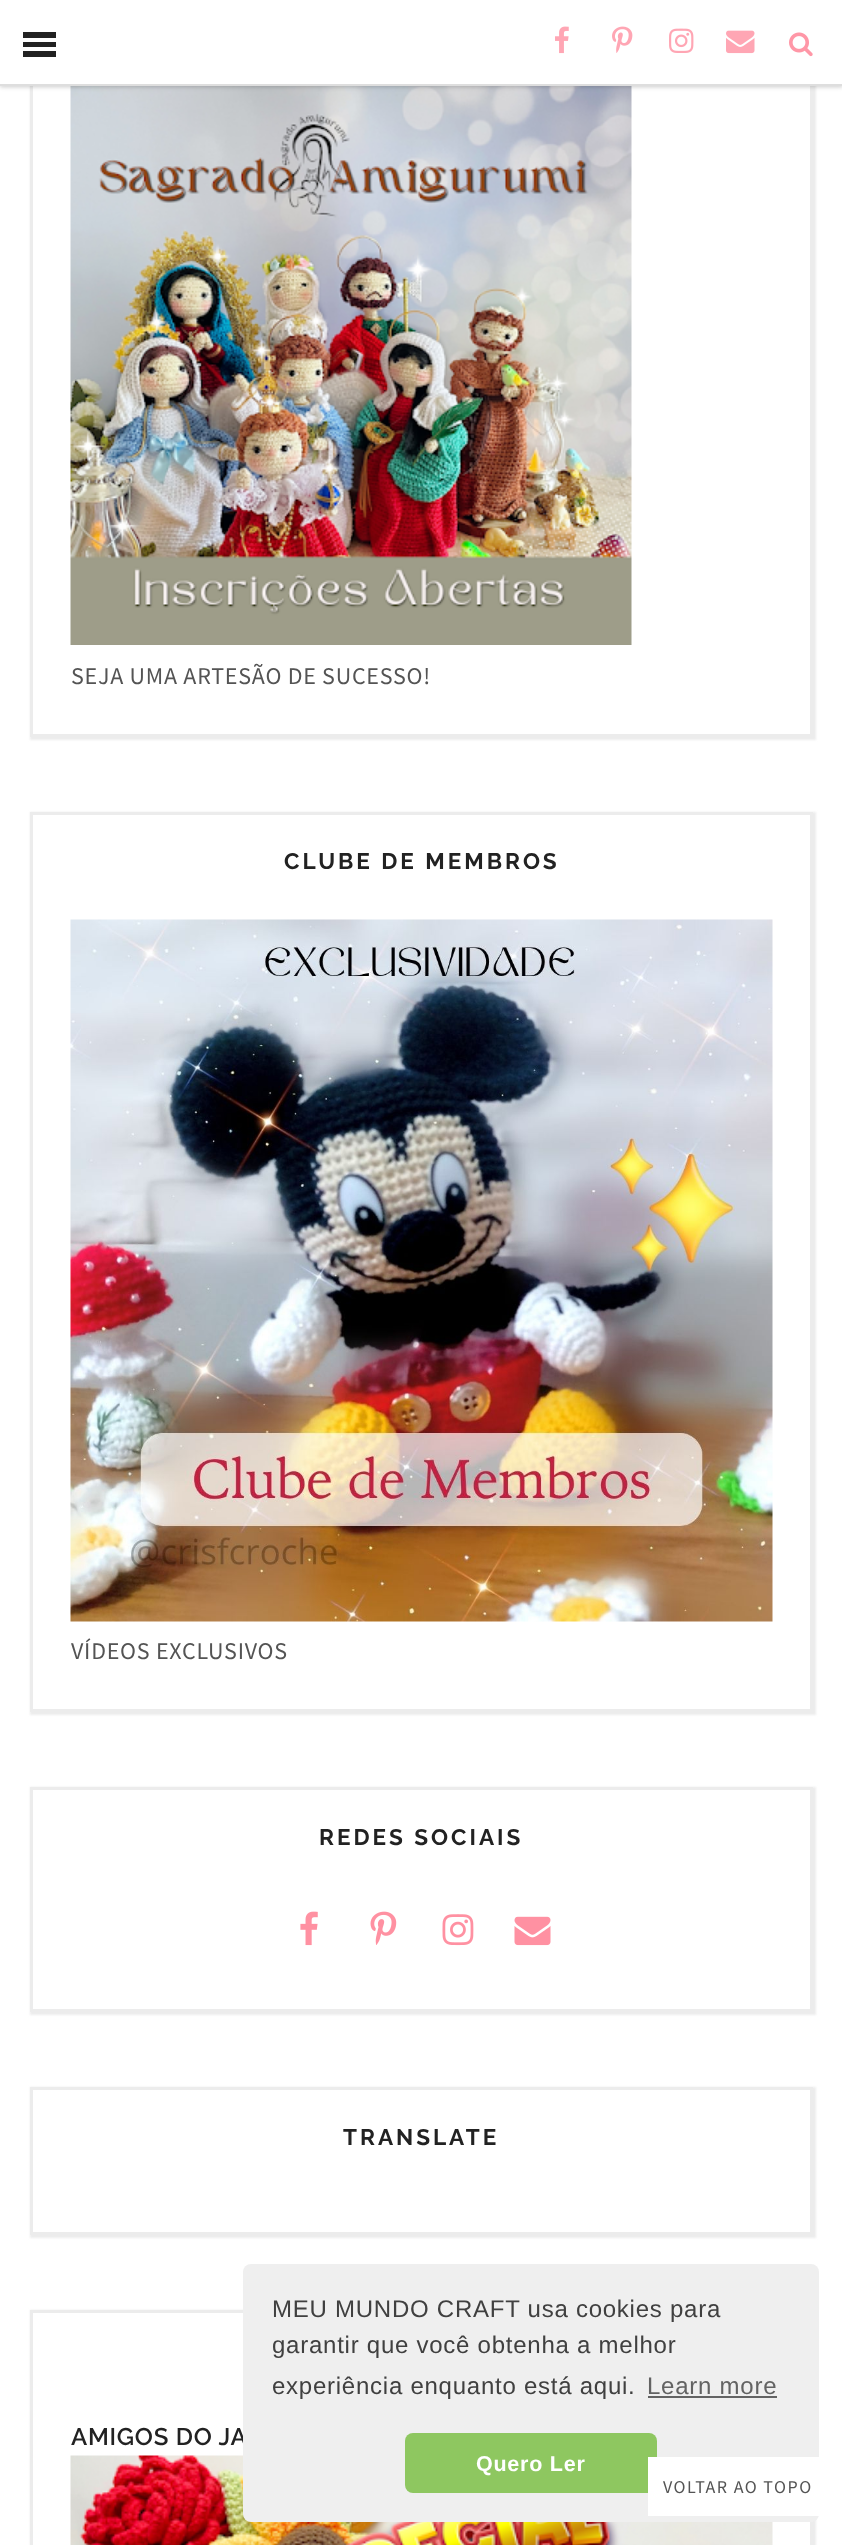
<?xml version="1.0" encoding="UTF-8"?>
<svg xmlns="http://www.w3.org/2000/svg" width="842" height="2545">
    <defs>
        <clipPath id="clip1"><path d="M 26 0 H 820 V 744 H 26 Z M 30 -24 H 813 V 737 H 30 Z" clip-rule="evenodd"/></clipPath>
        <filter id="blur1" x="-50%" y="-200%" width="200%" height="500%"><feGaussianBlur stdDeviation="1"/></filter>
        <filter id="blur2" x="-50%" y="-200%" width="200%" height="500%"><feGaussianBlur stdDeviation="2"/></filter>
        <clipPath id="clip2"><path d="M 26 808 H 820 V 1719 H 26 Z M 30 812 H 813 V 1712 H 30 Z" clip-rule="evenodd"/></clipPath>
        <clipPath id="clip3"><path d="M 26 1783 H 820 V 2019 H 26 Z M 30 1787 H 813 V 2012 H 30 Z" clip-rule="evenodd"/></clipPath>
        <clipPath id="clip4"><path d="M 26 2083 H 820 V 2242 H 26 Z M 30 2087 H 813 V 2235 H 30 Z" clip-rule="evenodd"/></clipPath>
        <clipPath id="clip5"><path d="M 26 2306 H 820 V 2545 H 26 Z M 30 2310 H 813 V 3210 H 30 Z" clip-rule="evenodd"/></clipPath>
    </defs>
    <rect width="100%" height="100%" fill="#FFFFFF"/>
    <g clip-path="url(#clip1)">
        <rect x="30" y="-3" width="786" height="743" fill="#ECECEC" filter="url(#blur1)"/>
    </g>
    <rect x="31.5" y="-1.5" width="780" height="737" fill="none" stroke="#ECECEC" stroke-width="3"/>
    <image x="70" y="86" width="562" height="559" href="img_06.png"/>
    <rect x="0" y="2" width="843" height="85" fill="#000000" fill-opacity="0.2" filter="url(#blur2)"/>
    <rect x="0" y="0" width="842" height="84" fill="#FFFFFF"/>
    <rect x="0" y="84" width="842" height="2" fill="#DEDEDE"/>
    <rect x="23" y="32" width="33" height="6" fill="#222222"/>
    <rect x="23" y="42" width="33" height="5" fill="#222222"/>
    <rect x="23" y="51" width="33" height="6" fill="#222222"/>
    <image x="555" y="26" width="14" height="28" href="img_01.png"/>
    <image x="612" y="26" width="21" height="27" href="img_02.png"/>
    <image x="669" y="28" width="25" height="25" href="img_03.png"/>
    <image x="726" y="30" width="29" height="24" href="img_04.png"/>
    <image x="789" y="32" width="24" height="25" href="img_05.png"/>
    <text x="71" y="684" font-family="Source Sans Pro" font-size="24" letter-spacing="0.75" fill="#545454">SEJA UMA ARTESÃO DE SUCESSO!</text>
    <g clip-path="url(#clip2)">
        <rect x="30" y="812" width="786" height="903" fill="#ECECEC" filter="url(#blur1)"/>
    </g>
    <rect x="31.5" y="813.5" width="780" height="897" fill="none" stroke="#ECECEC" stroke-width="3"/>
    <text x="284" y="869" font-family="Raleway" font-size="22.5" font-weight="700" letter-spacing="3" fill="#222222">CLUBE DE MEMBROS</text>
    <image x="70" y="919" width="703" height="703" href="img_07.png"/>
    <text x="71" y="1659" font-family="Source Sans Pro" font-size="24" letter-spacing="0.75" fill="#545454">VÍDEOS EXCLUSIVOS</text>
    <g clip-path="url(#clip3)">
        <rect x="30" y="1787" width="786" height="228" fill="#ECECEC" filter="url(#blur1)"/>
    </g>
    <rect x="31.5" y="1788.5" width="780" height="222" fill="none" stroke="#ECECEC" stroke-width="3"/>
    <text x="319" y="1845" font-family="Raleway" font-size="22.5" font-weight="700" letter-spacing="3" fill="#222222">REDES SOCIAIS</text>
    <image x="300" y="1911" width="18" height="35" href="img_08.png"/>
    <image x="370" y="1911" width="27" height="34" href="img_09.png"/>
    <image x="442" y="1914" width="32" height="32" href="img_10.png"/>
    <image x="514" y="1916" width="37" height="30" href="img_11.png"/>
    <g clip-path="url(#clip4)">
        <rect x="30" y="2087" width="786" height="151" fill="#ECECEC" filter="url(#blur1)"/>
    </g>
    <rect x="31.5" y="2088.5" width="780" height="145" fill="none" stroke="#ECECEC" stroke-width="3"/>
    <text x="343" y="2145" font-family="Raleway" font-size="22.5" font-weight="700" letter-spacing="3" fill="#222222">TRANSLATE</text>
    <g clip-path="url(#clip5)">
        <rect x="30" y="2310" width="786" height="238" fill="#ECECEC" filter="url(#blur1)"/>
    </g>
    <rect x="31.5" y="2311.5" width="780" height="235" fill="none" stroke="#ECECEC" stroke-width="3"/>
    <text x="71" y="2445" font-family="Raleway" font-size="24" font-weight="600" letter-spacing="0.75" fill="#222222">AMIGOS DO JA</text>
    <image x="70" y="2455" width="703" height="90" href="img_12.png"/>
    <rect x="243" y="2264" width="576" height="258" rx="8" fill="#EFEFEF"/>
    <text font-family="Liberation Sans" font-size="24" letter-spacing="0.75" fill="#404040">
        <tspan x="272" y="2317">MEU MUNDO CRAFT usa cookies para</tspan>
        <tspan x="272" y="2353">garantir que você obtenha a melhor</tspan>
        <tspan x="272" y="2394">experiência enquanto está aqui.</tspan>
    </text>
    <text x="647" y="2394" font-family="Liberation Sans" font-size="24" letter-spacing="0.75" fill="#636363">Learn more</text>
    <rect x="648" y="2396" width="129" height="2" fill="#636363"/>
    <rect x="405" y="2433" width="252" height="60" rx="8" fill="#8EC760"/>
    <text x="476" y="2471" font-family="Liberation Sans" font-size="21.5" font-weight="700" letter-spacing="0.75" fill="#FFFFFF">Quero Ler</text>
    <rect x="648" y="2457" width="171" height="59" fill="#FFFFFF"/>
    <text x="663" y="2493" font-family="Source Sans Pro" font-size="18" letter-spacing="1.5" fill="#545454">VOLTAR AO TOPO</text>
</svg>
